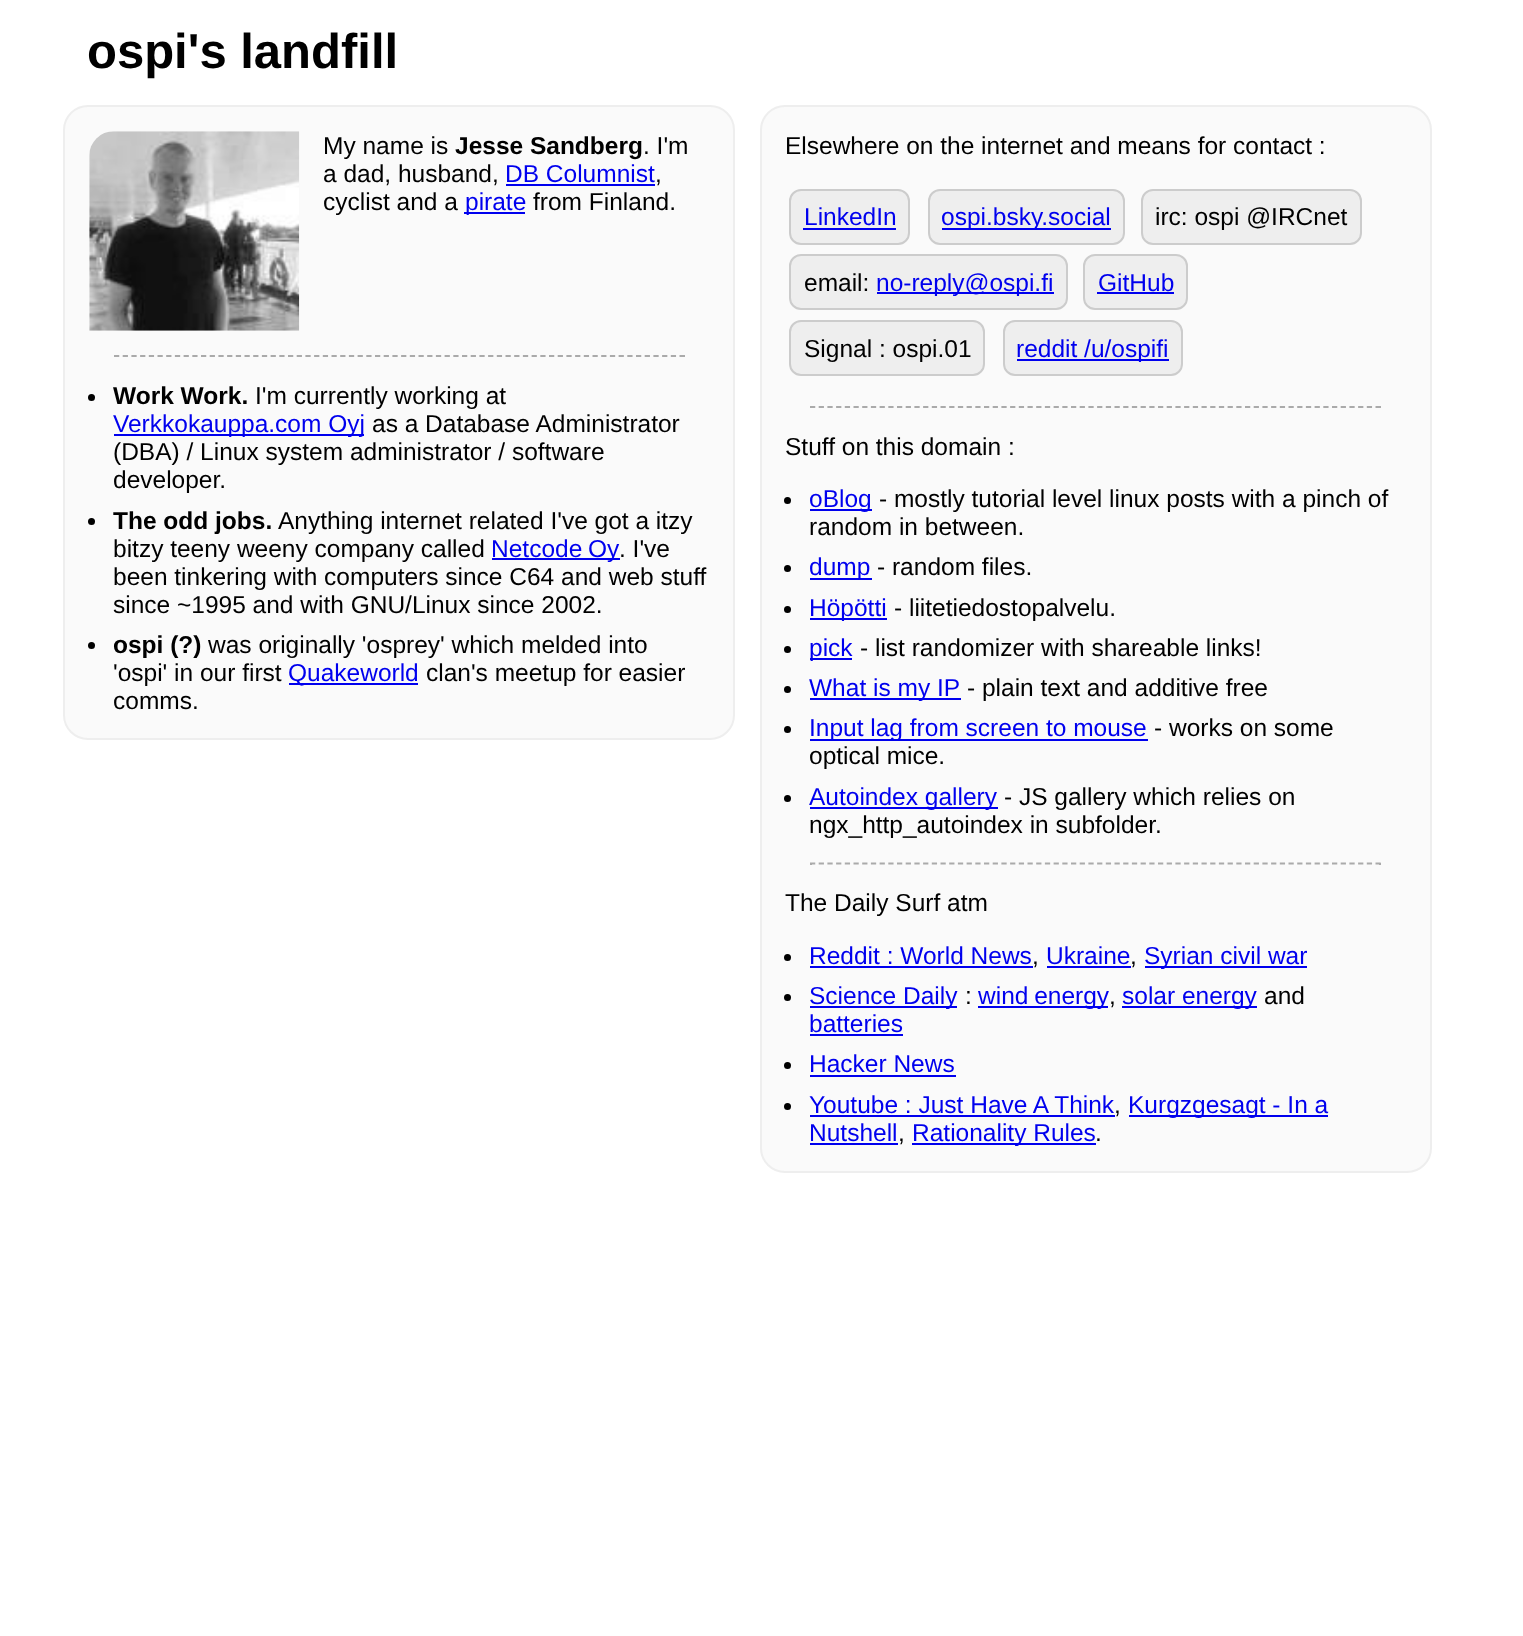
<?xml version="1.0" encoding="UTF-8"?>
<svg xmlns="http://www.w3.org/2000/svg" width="1523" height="1636">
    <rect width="100%" height="100%" fill="#FFFFFF"/>
    <text x="87" y="68" font-family="Liberation Sans" font-size="49" font-weight="700" fill="#000000">ospi's landfill</text>
    <rect x="64" y="106" width="670" height="633" rx="24" fill="#FAFAFA" stroke="#EEEEEE" stroke-width="2"/>
    <image x="89" y="131" width="211" height="200" href="img_01.png"/>
    <text x="323" y="154" font-family="Liberation Sans" font-size="24.5" fill="#000000">My name is</text>
    <text x="455" y="154" font-family="Liberation Sans" font-size="24.5" font-weight="700" fill="#000000">Jesse Sandberg</text>
    <text x="643" y="154" font-family="Liberation Sans" font-size="24.5" fill="#000000">. I'm</text>
    <text x="323" y="182" font-family="Liberation Sans" font-size="24.5" fill="#000000">a dad, husband,</text>
    <text x="505" y="182" font-family="Liberation Sans" font-size="24.5" fill="#0000EE">DB Columnist</text>
    <rect x="506" y="184" width="149" height="2" fill="#0000EE"/>
    <text x="655" y="182" font-family="Liberation Sans" font-size="24.5" fill="#000000">,</text>
    <text x="323" y="210" font-family="Liberation Sans" font-size="24.5" fill="#000000">cyclist and a</text>
    <rect x="464" y="212" width="61" height="2" fill="#0000EE"/>
    <text x="465" y="210" font-family="Liberation Sans" font-size="24.5" fill="#0000EE">pirate</text>
    <text x="533" y="210" font-family="Liberation Sans" font-size="24.5" fill="#000000">from Finland.</text>
    <rect x="683" y="355" width="2" height="2" fill="#AAAAAA"/>
    <path d="M 114 356 H 684" fill="none" stroke="#AAAAAA" stroke-width="1.8" stroke-dasharray="5.25 3.45"/>
    <rect x="114" y="355" width="2" height="2" fill="#AAAAAA"/>
    <circle cx="91.5" cy="397.5" r="3.5" fill="#000000"/>
    <text x="113" y="404" font-family="Liberation Sans" font-size="24.5" font-weight="700" fill="#000000">Work Work.</text>
    <text x="255" y="404" font-family="Liberation Sans" font-size="24.5" fill="#000000">I'm currently working at</text>
    <rect x="114" y="434" width="250" height="2" fill="#0000EE"/>
    <text x="113" y="432" font-family="Liberation Sans" font-size="24.5" fill="#0000EE">Verkkokauppa.com Oyj</text>
    <text x="372" y="432" font-family="Liberation Sans" font-size="24.5" fill="#000000">as a Database Administrator</text>
    <text font-family="Liberation Sans" font-size="24.5" fill="#000000">
        <tspan x="113" y="460">(DBA) / Linux system administrator / software</tspan>
        <tspan x="113" y="488">developer.</tspan>
    </text>
    <circle cx="91.5" cy="521.5" r="3.5" fill="#000000"/>
    <text x="113" y="529" font-family="Liberation Sans" font-size="24.5" font-weight="700" fill="#000000">The odd jobs.</text>
    <text x="278" y="529" font-family="Liberation Sans" font-size="24.5" fill="#000000">Anything internet related I've got a itzy</text>
    <text x="113" y="557" font-family="Liberation Sans" font-size="24.5" fill="#000000">bitzy teeny weeny company called</text>
    <rect x="492" y="558" width="128" height="2" fill="#0000EE"/>
    <text x="491" y="557" word-spacing="-1" font-family="Liberation Sans" font-size="24.5" fill="#0000EE">Netcode Oy</text>
    <text x="619" y="557" font-family="Liberation Sans" font-size="24.5" fill="#000000">. I've</text>
    <text font-family="Liberation Sans" font-size="24.5" fill="#000000">
        <tspan x="113" y="585">been tinkering with computers since C64 and web stuff</tspan>
        <tspan x="113" y="613">since ~1995 and with GNU/Linux since 2002.</tspan>
    </text>
    <circle cx="91.5" cy="645.5" r="3.5" fill="#000000"/>
    <text x="113" y="653" font-family="Liberation Sans" font-size="24.5" font-weight="700" fill="#000000">ospi (?)</text>
    <text x="208" y="653" font-family="Liberation Sans" font-size="24.5" fill="#000000">was originally 'osprey' which melded into</text>
    <text x="113" y="681" font-family="Liberation Sans" font-size="24.5" fill="#000000">'ospi' in our first</text>
    <rect x="289" y="683" width="129" height="2" fill="#0000EE"/>
    <text x="288" y="681" font-family="Liberation Sans" font-size="24.5" fill="#0000EE">Quakeworld</text>
    <text x="426" y="681" font-family="Liberation Sans" font-size="24.5" fill="#000000">clan's meetup for easier</text>
    <text x="113" y="709" font-family="Liberation Sans" font-size="24.5" fill="#000000">comms.</text>
    <rect x="761" y="106" width="670" height="1066" rx="24" fill="#FAFAFA" stroke="#EEEEEE" stroke-width="2"/>
    <text x="785" y="154" font-family="Liberation Sans" font-size="24.5" fill="#000000">Elsewhere on the internet and means for contact :</text>
    <rect x="790" y="190" width="119" height="54" rx="11" fill="#EEEEEE" stroke="#CCCCCC" stroke-width="2"/>
    <text x="804" y="225" font-family="Liberation Sans" font-size="24.5" fill="#0000EE">LinkedIn</text>
    <rect x="803" y="228" width="93" height="2" fill="#0000EE"/>
    <rect x="929" y="190" width="195" height="54" rx="11" fill="#EEEEEE" stroke="#CCCCCC" stroke-width="2"/>
    <rect x="942" y="228" width="169" height="2" fill="#0000EE"/>
    <text x="941" y="225" font-family="Liberation Sans" font-size="24.5" fill="#0000EE">ospi.bsky.social</text>
    <rect x="1142" y="190" width="219" height="54" rx="11" fill="#EEEEEE" stroke="#CCCCCC" stroke-width="2"/>
    <text x="1155" y="225" font-family="Liberation Sans" font-size="24.5" fill="#000000">irc: ospi @IRCnet</text>
    <rect x="790" y="255" width="277" height="54" rx="11" fill="#EEEEEE" stroke="#CCCCCC" stroke-width="2"/>
    <text x="804" y="291" font-family="Liberation Sans" font-size="24.5" fill="#000000">email:</text>
    <rect x="877" y="292" width="177" height="2" fill="#0000EE"/>
    <text x="876" y="291" font-family="Liberation Sans" font-size="24.5" fill="#0000EE">no-reply@ospi.fi</text>
    <rect x="1084" y="255" width="103" height="54" rx="11" fill="#EEEEEE" stroke="#CCCCCC" stroke-width="2"/>
    <text x="1098" y="291" font-family="Liberation Sans" font-size="24.5" fill="#0000EE">GitHub</text>
    <rect x="1097" y="292" width="77" height="2" fill="#0000EE"/>
    <rect x="790" y="321" width="194" height="54" rx="11" fill="#EEEEEE" stroke="#CCCCCC" stroke-width="2"/>
    <text x="804" y="357" font-family="Liberation Sans" font-size="24.5" fill="#000000">Signal : ospi.01</text>
    <rect x="1004" y="321" width="178" height="54" rx="11" fill="#EEEEEE" stroke="#CCCCCC" stroke-width="2"/>
    <rect x="1017" y="359" width="152" height="2" fill="#0000EE"/>
    <text x="1016" y="357" font-family="Liberation Sans" font-size="24.5" fill="#0000EE">reddit /u/ospifi</text>
    <rect x="1379" y="406" width="2" height="2" fill="#AAAAAA"/>
    <path d="M 810 407 H 1381" fill="none" stroke="#AAAAAA" stroke-width="1.8" stroke-dasharray="5.25 3.45"/>
    <rect x="810" y="406" width="2" height="2" fill="#AAAAAA"/>
    <text x="785" y="455" font-family="Liberation Sans" font-size="24.5" fill="#000000">Stuff on this domain :</text>
    <circle cx="787.5" cy="500.5" r="3.5" fill="#000000"/>
    <rect x="810" y="509" width="62" height="2" fill="#0000EE"/>
    <text x="809" y="507" font-family="Liberation Sans" font-size="24.5" fill="#0000EE">oBlog</text>
    <text x="879" y="507" font-family="Liberation Sans" font-size="24.5" fill="#000000">- mostly tutorial level linux posts with a pinch of</text>
    <text x="809" y="535" font-family="Liberation Sans" font-size="24.5" fill="#000000">random in between.</text>
    <circle cx="787.5" cy="568.5" r="3.5" fill="#000000"/>
    <rect x="810" y="578" width="62" height="2" fill="#0000EE"/>
    <text x="809" y="575" font-family="Liberation Sans" font-size="24.5" fill="#0000EE">dump</text>
    <text x="877" y="575" font-family="Liberation Sans" font-size="24.5" fill="#000000">- random files.</text>
    <circle cx="787.5" cy="609.5" r="3.5" fill="#000000"/>
    <rect x="810" y="618" width="77" height="2" fill="#0000EE"/>
    <text x="809" y="616" font-family="Liberation Sans" font-size="24.5" fill="#0000EE">Höpötti</text>
    <text x="894" y="616" font-family="Liberation Sans" font-size="24.5" fill="#000000">- liitetiedostopalvelu.</text>
    <circle cx="787.5" cy="649.5" r="3.5" fill="#000000"/>
    <rect x="810" y="658" width="42" height="2" fill="#0000EE"/>
    <text x="809" y="656" font-family="Liberation Sans" font-size="24.5" fill="#0000EE">pick</text>
    <text x="860" y="656" font-family="Liberation Sans" font-size="24.5" fill="#000000">- list randomizer with shareable links!</text>
    <circle cx="787.5" cy="689.5" r="3.5" fill="#000000"/>
    <rect x="810" y="698" width="151" height="2" fill="#0000EE"/>
    <text x="809" y="696" font-family="Liberation Sans" font-size="24.5" fill="#0000EE">What is my IP</text>
    <text x="967" y="696" font-family="Liberation Sans" font-size="24.5" fill="#000000">- plain text and additive free</text>
    <circle cx="787.5" cy="729.5" r="3.5" fill="#000000"/>
    <rect x="810" y="739" width="338" height="2" fill="#0000EE"/>
    <text x="809" y="736" font-family="Liberation Sans" font-size="24.5" fill="#0000EE">Input lag from screen to mouse</text>
    <text x="1154" y="736" font-family="Liberation Sans" font-size="24.5" fill="#000000">- works on some</text>
    <text x="809" y="764" font-family="Liberation Sans" font-size="24.5" fill="#000000">optical mice.</text>
    <circle cx="787.5" cy="798.5" r="3.5" fill="#000000"/>
    <rect x="810" y="807" width="188" height="2" fill="#0000EE"/>
    <text x="809" y="805" font-family="Liberation Sans" font-size="24.5" fill="#0000EE">Autoindex gallery</text>
    <text x="1004" y="805" font-family="Liberation Sans" font-size="24.5" fill="#000000">- JS gallery which relies on</text>
    <text x="809" y="833" font-family="Liberation Sans" font-size="24.5" fill="#000000">ngx_http_autoindex in subfolder.</text>
    <rect x="1379" y="863" width="2" height="2" fill="#AAAAAA"/>
    <path d="M 810 863.5 H 1381" fill="none" stroke="#AAAAAA" stroke-width="1.8" stroke-dasharray="5.25 3.45"/>
    <rect x="810" y="864" width="2" height="1" fill="#AAAAAA"/>
    <text x="785" y="911" font-family="Liberation Sans" font-size="24.5" fill="#000000">The Daily Surf atm</text>
    <circle cx="787.5" cy="957.5" r="3.5" fill="#000000"/>
    <text x="809" y="964" font-family="Liberation Sans" font-size="24.5" fill="#0000EE">Reddit : World News</text>
    <rect x="810" y="966" width="223" height="2" fill="#0000EE"/>
    <text x="1046" y="964" font-family="Liberation Sans" font-size="24.5" fill="#0000EE">Ukraine</text>
    <rect x="1047" y="966" width="84" height="2" fill="#0000EE"/>
    <rect x="1145" y="966" width="162" height="2" fill="#0000EE"/>
    <text x="1144" y="964" font-family="Liberation Sans" font-size="24.5" fill="#0000EE">Syrian civil war</text>
    <text x="1032" y="964" font-family="Liberation Sans" font-size="24.5" fill="#000000">,</text>
    <text x="1130" y="964" font-family="Liberation Sans" font-size="24.5" fill="#000000">,</text>
    <circle cx="787.5" cy="997.5" r="3.5" fill="#000000"/>
    <rect x="810" y="1006" width="147" height="2" fill="#0000EE"/>
    <text x="809" y="1004" font-family="Liberation Sans" font-size="24.5" fill="#0000EE">Science Daily</text>
    <text x="965" y="1004" font-family="Liberation Sans" font-size="24.5" fill="#000000">:</text>
    <rect x="978" y="1006" width="130" height="2" fill="#0000EE"/>
    <text x="978" y="1004" word-spacing="-1" font-family="Liberation Sans" font-size="24.5" fill="#0000EE">wind energy</text>
    <rect x="1122" y="1006" width="135" height="2" fill="#0000EE"/>
    <text x="1122" y="1004" font-family="Liberation Sans" font-size="24.5" fill="#0000EE">solar energy</text>
    <text x="1264" y="1004" font-family="Liberation Sans" font-size="24.5" fill="#000000">and</text>
    <text x="1109" y="1004" font-family="Liberation Sans" font-size="24.5" fill="#000000">,</text>
    <text x="809" y="1032" font-family="Liberation Sans" font-size="24.5" fill="#0000EE">batteries</text>
    <rect x="810" y="1034" width="93" height="2" fill="#0000EE"/>
    <circle cx="787.5" cy="1065.5" r="3.5" fill="#000000"/>
    <text x="809" y="1072" font-family="Liberation Sans" font-size="24.5" fill="#0000EE">Hacker News</text>
    <rect x="810" y="1075" width="146" height="2" fill="#0000EE"/>
    <circle cx="787.5" cy="1106.5" r="3.5" fill="#000000"/>
    <text x="809" y="1113" font-family="Liberation Sans" font-size="24.5" fill="#0000EE">Youtube : Just Have A Think</text>
    <rect x="810" y="1115" width="305" height="2" fill="#0000EE"/>
    <rect x="1129" y="1115" width="199" height="2" fill="#0000EE"/>
    <text x="1128" y="1113" font-family="Liberation Sans" font-size="24.5" fill="#0000EE">Kurgzgesagt - In a</text>
    <text x="1114" y="1113" font-family="Liberation Sans" font-size="24.5" fill="#000000">,</text>
    <text x="809" y="1141" font-family="Liberation Sans" font-size="24.5" fill="#0000EE">Nutshell</text>
    <rect x="810" y="1143" width="88" height="2" fill="#0000EE"/>
    <text x="898" y="1141" font-family="Liberation Sans" font-size="24.5" fill="#000000">,</text>
    <rect x="912" y="1143" width="184" height="2" fill="#0000EE"/>
    <text x="912" y="1141" font-family="Liberation Sans" font-size="24.5" fill="#0000EE">Rationality Rules</text>
    <text x="1095" y="1141" font-family="Liberation Sans" font-size="24.5" fill="#000000">.</text>
</svg>
